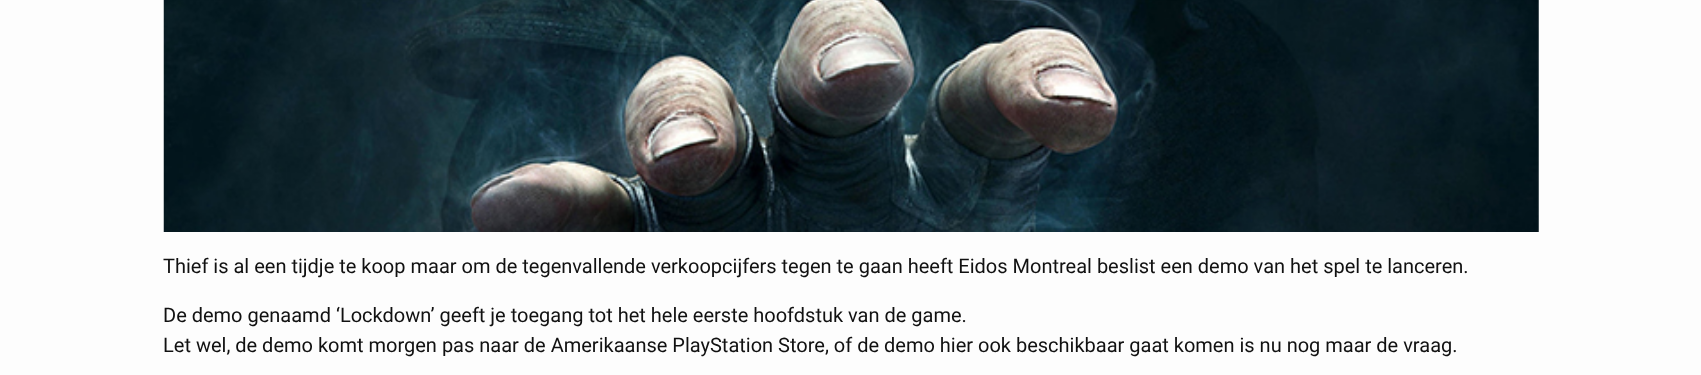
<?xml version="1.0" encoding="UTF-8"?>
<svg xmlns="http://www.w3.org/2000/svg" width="1701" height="375">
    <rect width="100%" height="100%" fill="#FDFDFD"/>
    <image x="163" y="0" width="1376" height="232" href="img_01.png"/>
    <text x="163" y="273" font-family="Roboto" font-size="20" fill="#111111">Thief is al een tijdje te koop maar om de tegenvallende verkoopcijfers tegen te gaan heeft Eidos Montreal beslist een demo van het spel te lanceren.</text>
    <text font-family="Roboto" font-size="20" fill="#111111">
        <tspan x="163" y="322">De demo genaamd ‘Lockdown’ geeft je toegang tot het hele eerste hoofdstuk van de game.</tspan>
        <tspan x="163" y="352">Let wel, de demo komt morgen pas naar de Amerikaanse PlayStation Store, of de demo hier ook beschikbaar gaat komen is nu nog maar de vraag.</tspan>
    </text>
</svg>
